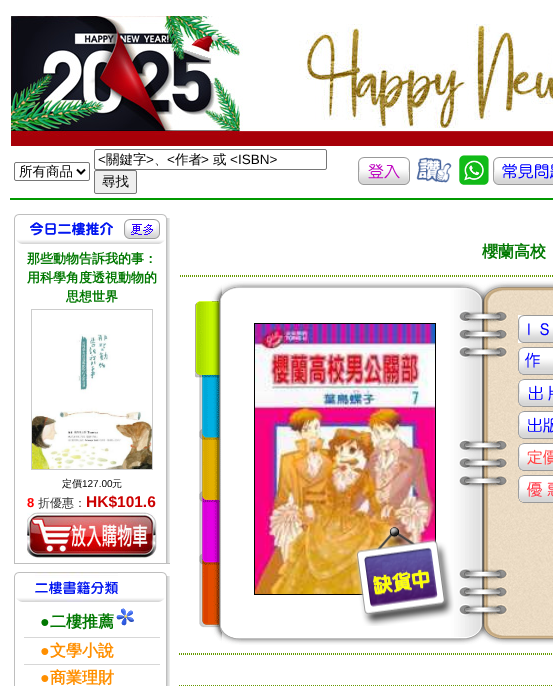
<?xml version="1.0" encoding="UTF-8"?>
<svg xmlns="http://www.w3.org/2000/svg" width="553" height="686">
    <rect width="100%" height="100%" fill="#FFFFFF"/>
    <image x="195" y="281" width="358" height="364" href="img_01.png"/>
    <rect x="10" y="198" width="543" height="2" fill="#009900"/>
    <image x="11" y="16" width="542" height="130" href="img_02.png"/>
    <rect x="14.5" y="162.5" width="75" height="18" rx="1.5" fill="none" stroke="#767676"/>
    <path d="M 77 169.5 L 81 173.5 L 85 169.5" fill="none" stroke="#000000" stroke-width="2"/>
    <text x="19" y="176" font-family="WenQuanYi Zen Hei" font-size="13.5" font-weight="500" fill="#000000">所有商品</text>
    <rect x="94.5" y="149.5" width="232" height="20" rx="1.5" fill="none" stroke="#767676"/>
    <text x="98" y="164" font-family="Liberation Sans" font-size="13.5" fill="#000000">&lt;</text>
    <text x="106" y="164" font-family="WenQuanYi Zen Hei" font-size="13.5" font-weight="500" fill="#000000">關鍵字</text>
    <text x="146" y="164" font-family="Liberation Sans" font-size="13.5" fill="#000000">&gt;</text>
    <text x="167" y="164" font-family="Liberation Sans" font-size="13.5" fill="#000000">&lt;</text>
    <text x="175" y="164" font-family="WenQuanYi Zen Hei" font-size="13.5" font-weight="500" fill="#000000">作者</text>
    <text x="201" y="164" font-family="Liberation Sans" font-size="13.5" fill="#000000">&gt;</text>
    <text x="213" y="164" font-family="WenQuanYi Zen Hei" font-size="13.5" font-weight="500" fill="#000000">或</text>
    <text x="230" y="164" font-family="Liberation Sans" font-size="13.5" fill="#000000">&lt;ISBN&gt;</text>
    <text x="154" y="164" font-family="WenQuanYi Zen Hei" font-size="13.5" font-weight="500" fill="#000000">、</text>
    <rect x="94.5" y="170.5" width="42" height="23" rx="1.5" fill="#EFEFEF" stroke="#767676"/>
    <text x="102" y="186" font-family="WenQuanYi Zen Hei" font-size="13.5" font-weight="500" fill="#000000">尋找</text>
    <image x="358" y="157" width="52" height="28" href="img_03.png"/>
    <image x="416" y="157" width="36" height="26" href="img_04.png"/>
    <image x="459" y="155" width="30" height="30" href="img_05.png"/>
    <image x="493" y="157" width="60" height="28" href="img_06.png"/>
    <image x="14" y="214" width="156" height="30" href="img_07.png"/>
    <image x="30" y="222" width="83" height="14" href="img_08.png"/>
    <image x="124" y="219" width="36" height="20" href="img_09.png"/>
    <image x="14" y="244" width="156" height="319" href="img_10.png"/>
    <rect x="14" y="563" width="156" height="1" fill="#BEBEBE"/>
    <text font-family="WenQuanYi Zen Hei" font-size="13" font-weight="700" fill="#007800">
        <tspan x="27" y="263">那些動物告訴我的事：</tspan>
        <tspan x="27" y="282">用科學角度透視動物的</tspan>
    </text>
    <text x="66" y="301" font-family="WenQuanYi Zen Hei" font-size="13" font-weight="700" fill="#007800">思想世界</text>
    <rect x="31.5" y="309.5" width="121" height="160" fill="none" stroke="#CCCCCC"/>
    <image x="32" y="334" width="120" height="135" href="img_11.png"/>
    <text x="62" y="487" font-family="WenQuanYi Zen Hei" font-size="10" font-weight="500" fill="#000000">定價</text>
    <text x="82" y="487" font-family="Liberation Sans" font-size="10" fill="#000000">127.00</text>
    <text x="112" y="487" font-family="WenQuanYi Zen Hei" font-size="10" font-weight="500" fill="#000000">元</text>
    <text x="27" y="507" font-family="Liberation Sans" font-size="13" font-weight="700" fill="#FF0000">8</text>
    <text x="38" y="507" font-family="WenQuanYi Zen Hei" font-size="12" font-weight="500" fill="#333333">折優惠：</text>
    <text x="86" y="507" font-family="Liberation Sans" font-size="15.5" font-weight="700" fill="#CC0000">HK$101.6</text>
    <image x="27" y="512" width="130" height="46" href="img_12.png"/>
    <image x="14" y="572" width="156" height="30" href="img_13.png"/>
    <image x="35" y="572" width="83" height="30" href="img_14.png"/>
    <image x="14" y="602" width="156" height="84" href="img_15.png"/>
    <rect x="24" y="637" width="136" height="1" fill="#D7D7D7"/>
    <text x="40" y="627" font-family="Liberation Sans" font-size="16" font-weight="700" fill="#007800">●</text>
    <text x="50" y="627" font-family="WenQuanYi Zen Hei" font-size="16" font-weight="700" fill="#007800">二樓推薦</text>
    <image x="116" y="608" width="18" height="18" href="img_16.png"/>
    <rect x="24" y="664" width="136" height="1" fill="#D7D7D7"/>
    <text x="40" y="656" font-family="Liberation Sans" font-size="16" font-weight="700" fill="#FF8F00">●</text>
    <text x="50" y="656" font-family="WenQuanYi Zen Hei" font-size="16" font-weight="700" fill="#FF8F00">文學小說</text>
    <text x="40" y="683" font-family="Liberation Sans" font-size="16" font-weight="700" fill="#FF8F00">●</text>
    <text x="50" y="683" font-family="WenQuanYi Zen Hei" font-size="16" font-weight="700" fill="#FF8F00">商業理財</text>
    <text x="482" y="257" font-family="WenQuanYi Zen Hei" font-size="16" font-weight="700" fill="#007800">櫻蘭高校</text>
    <path d="M 180 275.5 H 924" fill="none" stroke="#669900" stroke-dasharray="1 1"/>
    <path d="M 180 276.5 H 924" fill="none" stroke="#669900" stroke-dasharray="1 1"/>
    <rect x="254.5" y="323.5" width="181" height="271" fill="none" stroke="#000000"/>
    <image x="255" y="324" width="180" height="270" href="img_17.png"/>
    <image x="518" y="315" width="35" height="28" href="img_18.png"/>
    <image x="518" y="347" width="35" height="28" href="img_19.png"/>
    <image x="518" y="379" width="35" height="28" href="img_20.png"/>
    <image x="518" y="411" width="35" height="28" href="img_21.png"/>
    <image x="518" y="443" width="35" height="28" href="img_22.png"/>
    <image x="518" y="475" width="35" height="28" href="img_23.png"/>
    <path d="M 179 653.5 H 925" fill="none" stroke="#669900" stroke-dasharray="1 1"/>
    <path d="M 179 654.5 H 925" fill="none" stroke="#669900" stroke-dasharray="1 1"/>
    <path d="M 179 685.5 H 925" fill="none" stroke="#669900" stroke-dasharray="1 1"/>
    <image x="354" y="525" width="100" height="101" href="img_24.png"/>
</svg>
